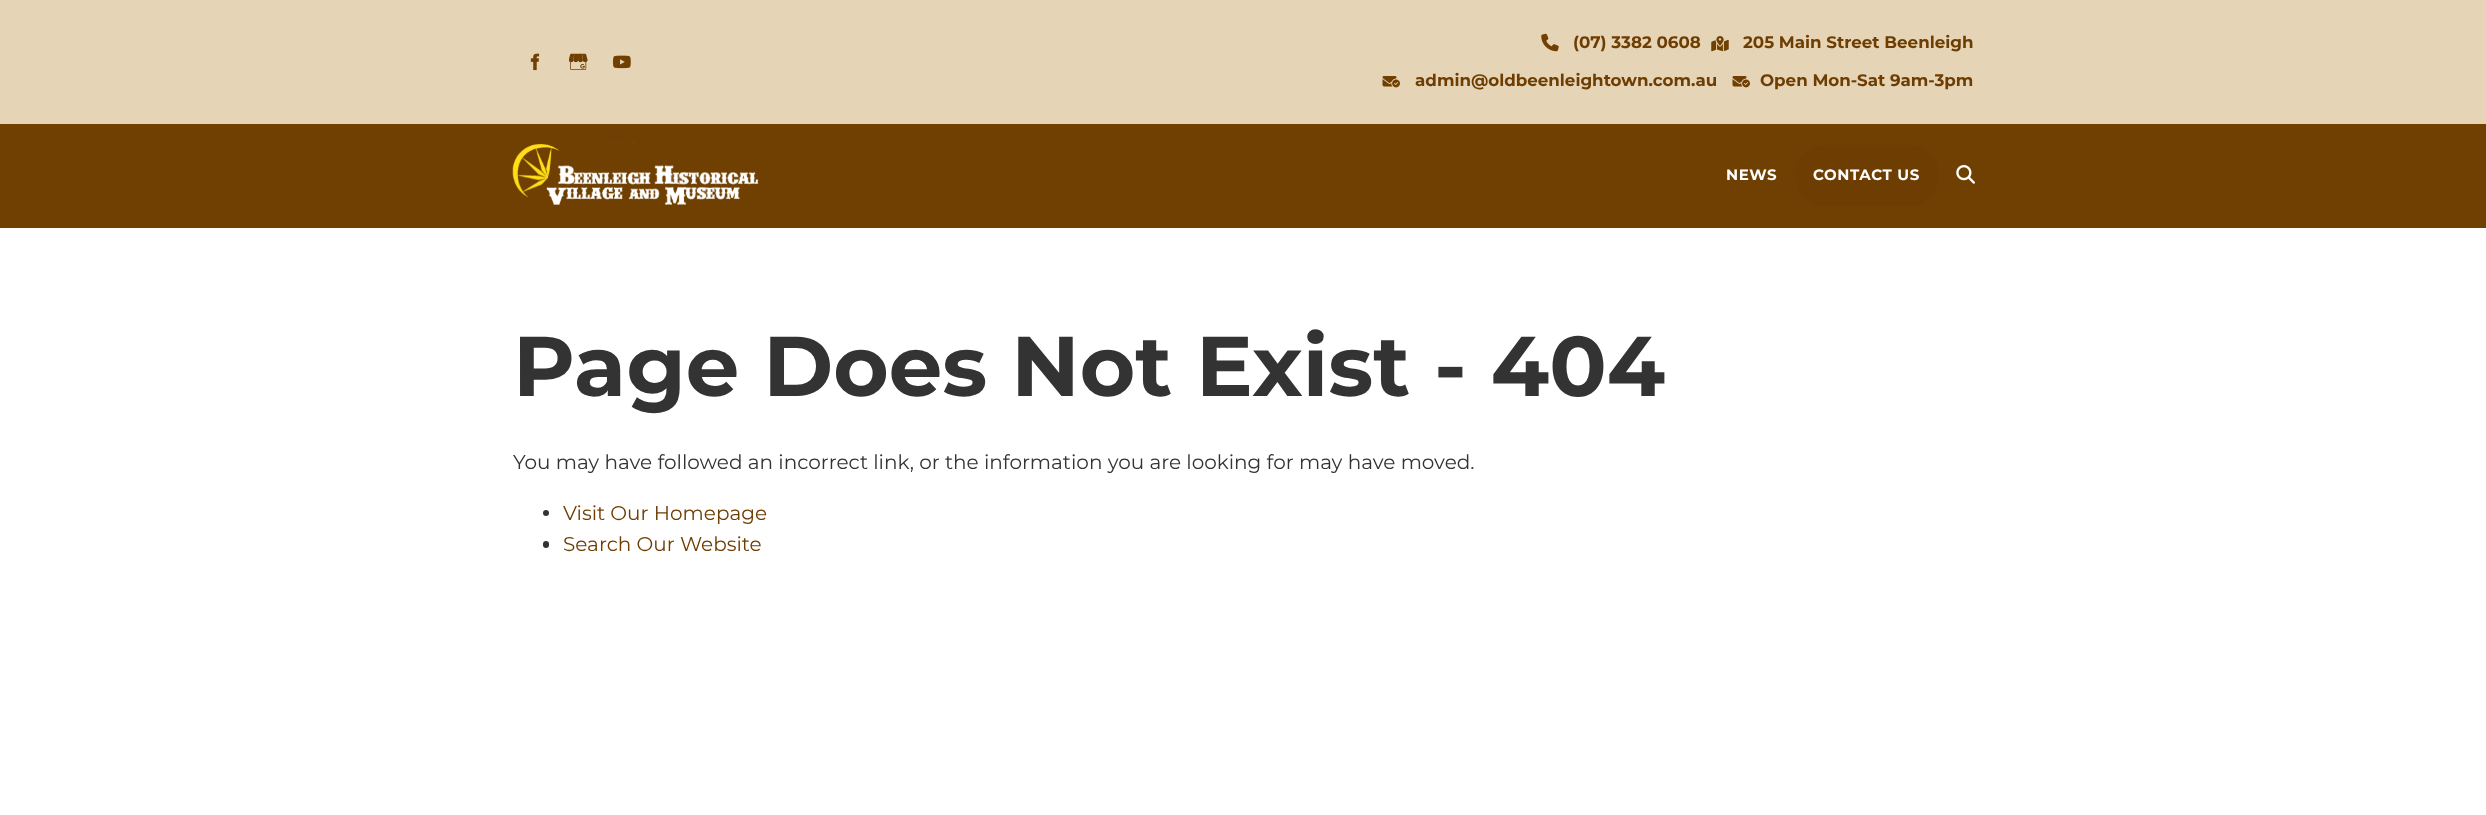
<?xml version="1.0" encoding="UTF-8"?>
<svg xmlns="http://www.w3.org/2000/svg" width="2486" height="815">
    <rect width="100%" height="100%" fill="#FFFFFF"/>
    <rect x="0" y="0" width="2486" height="124" fill="#E5D4B6"/>
    <image x="530" y="53" width="10" height="18" href="img_01.png"/>
    <image x="569" y="53" width="19" height="17" href="img_02.png"/>
    <image x="613" y="55" width="18" height="14" href="img_03.png"/>
    <image x="1541" y="33" width="18" height="19" href="img_04.png"/>
    <text x="1573" y="48" font-family="Montserrat" font-size="16.7" font-weight="700" fill="#6E3D02">(07) 3382 0608</text>
    <image x="1711" y="36" width="18" height="16" href="img_05.png"/>
    <text x="1743" y="48" font-family="Montserrat" font-size="16.7" font-weight="700" fill="#6E3D02">205 Main Street Beenleigh</text>
    <image x="1382" y="76" width="18" height="12" href="img_06.png"/>
    <text x="1415" y="86" font-family="Montserrat" font-size="16.7" font-weight="700" fill="#6E3D02">admin@oldbeenleightown.com.au</text>
    <image x="1732" y="76" width="18" height="12" href="img_06.png"/>
    <text x="1760" y="86" font-family="Montserrat" font-size="16.7" font-weight="700" fill="#6E3D02">Open Mon-Sat 9am-3pm</text>
    <rect x="0" y="124" width="2486" height="104" fill="#704002"/>
    <image x="512" y="142" width="247" height="63" href="img_07.png"/>
    <text x="1726" y="180" font-family="Montserrat" font-size="15" font-weight="700" letter-spacing="0.6" fill="#FFFFFF">NEWS</text>
    <rect x="1795" y="145" width="144" height="61" rx="30.5" fill="#6E3D02"/>
    <text x="1813" y="180" font-family="Montserrat" font-size="15" font-weight="700" letter-spacing="0.6" fill="#FFFFFF">CONTACT US</text>
    <image x="1956" y="165" width="19" height="19" href="img_08.png"/>
    <text x="513" y="396" font-family="Montserrat" font-size="84.75" font-weight="700" fill="#333333">Page Does Not Exist - 404</text>
    <text x="513" y="469" font-family="Montserrat" font-size="20" fill="#333333">You may have followed an incorrect link, or the information you are looking for may have moved.</text>
    <circle cx="546" cy="513" r="3" fill="#333333"/>
    <text x="563" y="520" font-family="Montserrat" font-size="20" fill="#6E3D02">Visit Our Homepage</text>
    <rect x="543" y="541" width="6" height="7" rx="3" fill="#333333"/>
    <text x="563" y="551" font-family="Montserrat" font-size="20" fill="#6E3D02">Search Our Website</text>
</svg>
